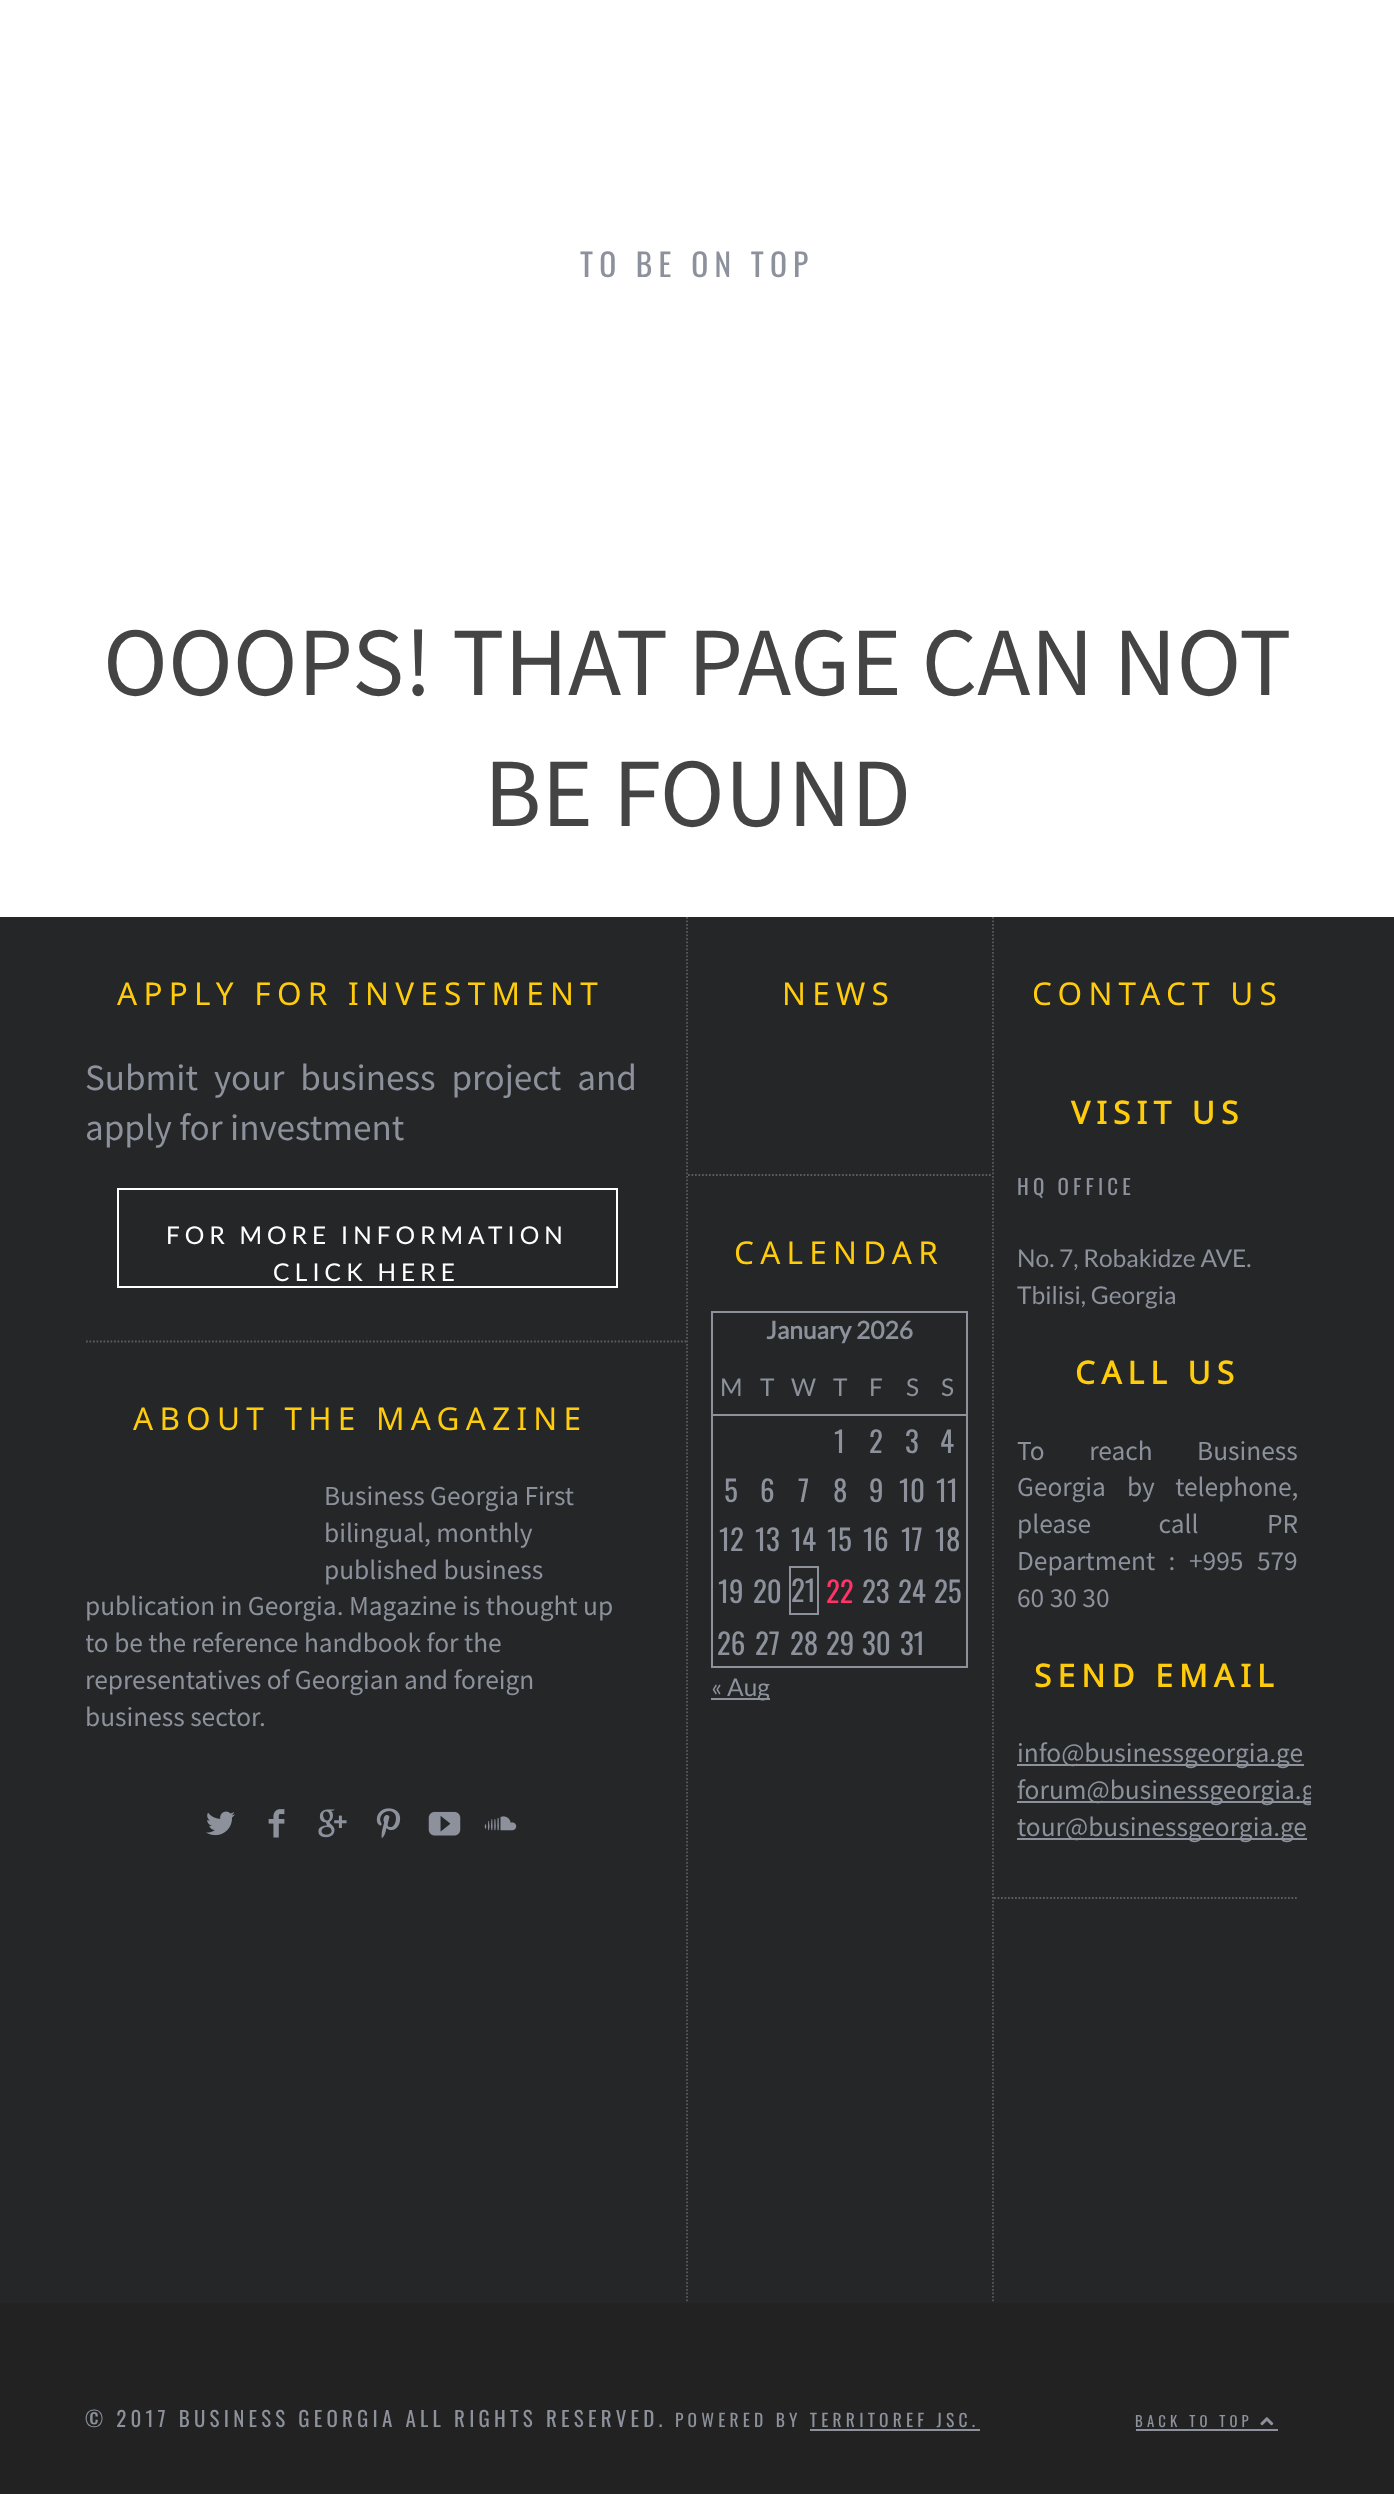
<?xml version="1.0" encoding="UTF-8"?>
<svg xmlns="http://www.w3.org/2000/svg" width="1394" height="2494">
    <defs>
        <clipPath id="clip1"><rect x="86" y="917" width="1225" height="1386"/></clipPath>
    </defs>
    <rect width="100%" height="100%" fill="#FFFFFF"/>
    <text x="580" y="277" font-family="Oswald" font-size="31.5" letter-spacing="6.25" fill="#8C919B">TO BE ON TOP</text>
    <text x="103" y="695" font-family="Noto Sans KR" font-size="87.5" font-weight="100" fill="#444444">OOOPS! THAT PAGE CAN NOT</text>
    <text x="484" y="826" font-family="Noto Sans KR" font-size="87.5" font-weight="100" fill="#444444">BE FOUND</text>
    <rect x="0" y="917" width="1394" height="1386" fill="#242628"/>
    <text x="117" y="1005" font-family="Noto Sans" font-size="31.5" letter-spacing="6.25" fill="#FFCC0D">APPLY FOR INVESTMENT</text>
    <text font-family="Noto Sans KR" font-size="33.25" font-weight="100" fill="#8C919B">
        <tspan x="85" y="1090" word-spacing="8.5">Submit your business project and</tspan>
        <tspan x="85" y="1140">apply for investment</tspan>
    </text>
    <rect x="118" y="1189" width="499" height="98" fill="none" stroke="#FFFFFF" stroke-width="2"/>
    <text x="166" y="1244" font-family="Lato" font-size="24.5" letter-spacing="4.9" fill="#FFFFFF">FOR MORE INFORMATION</text>
    <text x="273" y="1281" font-family="Lato" font-size="24.5" letter-spacing="4.9" fill="#FFFFFF">CLICK HERE</text>
    <path d="M 86 1341.5 H 686" fill="none" stroke="#585B61" stroke-width="1.8" stroke-dasharray="1.75 1.75"/>
    <text x="133" y="1430" font-family="Noto Sans" font-size="31.5" letter-spacing="6.25" fill="#FFCC0D">ABOUT THE MAGAZINE</text>
    <text font-family="Noto Sans KR" font-size="24.5" font-weight="100" fill="#8C919B">
        <tspan x="324" y="1505">Business Georgia First</tspan>
        <tspan x="324" y="1542">bilingual, monthly</tspan>
        <tspan x="324" y="1579">published business</tspan>
    </text>
    <text x="85" y="1615" font-family="Noto Sans KR" font-size="24.5" font-weight="100" fill="#8C919B">publication in Georgia. Magazine is thought up</text>
    <g clip-path="url(#clip1)">
        <text x="85" y="1652" font-family="Noto Sans KR" font-size="24.5" font-weight="100" fill="#8C919B">to be the reference handbook for the</text>
    </g>
    <text font-family="Noto Sans KR" font-size="24.5" font-weight="100" fill="#8C919B">
        <tspan x="85" y="1689">representatives of Georgian and foreign</tspan>
        <tspan x="85" y="1726">business sector.</tspan>
    </text>
    <image x="206" y="1811" width="29" height="25" href="img_01.png"/>
    <image x="268" y="1809" width="17" height="29" href="img_02.png"/>
    <image x="318" y="1809" width="29" height="29" href="img_03.png"/>
    <image x="376" y="1808" width="25" height="31" href="img_04.png"/>
    <image x="428" y="1811" width="33" height="25" href="img_05.png"/>
    <image x="484" y="1816" width="33" height="15" href="img_06.png"/>
    <g clip-path="url(#clip1)">
        <path d="M 687 917 V 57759" fill="none" stroke="#585B61" stroke-width="1.8" stroke-dasharray="1.75 1.75"/>
    </g>
    <text x="782" y="1005" font-family="Noto Sans" font-size="31.5" letter-spacing="6.25" fill="#FFCC0D">NEWS</text>
    <path d="M 688 1175 H 992" fill="none" stroke="#585B61" stroke-width="1.8" stroke-dasharray="1.75 1.75"/>
    <text x="734" y="1264" font-family="Noto Sans" font-size="31.5" letter-spacing="6.25" fill="#FFCC0D">CALENDAR</text>
    <rect x="711" y="1311" width="257" height="2" fill="#8C919B"/>
    <rect x="966" y="1311" width="2" height="357" fill="#8C919B"/>
    <rect x="711" y="1666" width="257" height="2" fill="#8C919B"/>
    <rect x="711" y="1311" width="2" height="357" fill="#8C919B"/>
    <text x="766" y="1339" font-family="Lato" font-size="24.5" font-weight="700" fill="#8C919B">January 2026</text>
    <rect x="711" y="1414" width="257" height="2" fill="#8C919B"/>
    <text x="720" y="1396" font-family="Lato" font-size="24.5" fill="#8C919B">M</text>
    <text x="760" y="1396" font-family="Lato" font-size="24.5" fill="#8C919B">T</text>
    <text x="791" y="1396" font-family="Lato" font-size="24.5" fill="#8C919B">W</text>
    <text x="833" y="1396" font-family="Lato" font-size="24.5" fill="#8C919B">T</text>
    <text x="869" y="1396" font-family="Lato" font-size="24.5" fill="#8C919B">F</text>
    <text x="906" y="1396" font-family="Lato" font-size="24.5" fill="#8C919B">S</text>
    <text x="941" y="1396" font-family="Lato" font-size="24.5" fill="#8C919B">S</text>
    <text x="834" y="1453" font-family="Oswald" font-size="29" fill="#8C919B">1</text>
    <text x="869" y="1453" font-family="Oswald" font-size="29" fill="#8C919B">2</text>
    <text x="905" y="1453" font-family="Oswald" font-size="29" fill="#8C919B">3</text>
    <text x="940" y="1453" font-family="Oswald" font-size="29" fill="#8C919B">4</text>
    <text x="724" y="1502" font-family="Oswald" font-size="29" fill="#8C919B">5</text>
    <text x="760" y="1502" font-family="Oswald" font-size="29" fill="#8C919B">6</text>
    <text x="798" y="1502" font-family="Oswald" font-size="29" fill="#8C919B">7</text>
    <text x="833" y="1502" font-family="Oswald" font-size="29" fill="#8C919B">8</text>
    <text x="869" y="1502" font-family="Oswald" font-size="29" fill="#8C919B">9</text>
    <text x="899" y="1502" font-family="Oswald" font-size="29" fill="#8C919B">10</text>
    <text x="936" y="1502" font-family="Oswald" font-size="29" fill="#8C919B">11</text>
    <text x="719" y="1551" font-family="Oswald" font-size="29" fill="#8C919B">12</text>
    <text x="755" y="1551" font-family="Oswald" font-size="29" fill="#8C919B">13</text>
    <text x="791" y="1551" font-family="Oswald" font-size="29" fill="#8C919B">14</text>
    <text x="827" y="1551" font-family="Oswald" font-size="29" fill="#8C919B">15</text>
    <text x="863" y="1551" font-family="Oswald" font-size="29" fill="#8C919B">16</text>
    <text x="901" y="1551" font-family="Oswald" font-size="29" fill="#8C919B">17</text>
    <text x="935" y="1551" font-family="Oswald" font-size="29" fill="#8C919B">18</text>
    <text x="718" y="1603" font-family="Oswald" font-size="29" fill="#8C919B">19</text>
    <text x="753" y="1603" font-family="Oswald" font-size="29" fill="#8C919B">20</text>
    <rect x="790" y="1567" width="28" height="47" fill="none" stroke="#8C919B" stroke-width="2"/>
    <text x="791" y="1602" font-family="Oswald" font-size="29" fill="#8C919B">21</text>
    <text x="826" y="1603" font-family="Oswald" font-size="29" fill="#FF3366">22</text>
    <text x="862" y="1603" font-family="Oswald" font-size="29" fill="#8C919B">23</text>
    <text x="898" y="1603" font-family="Oswald" font-size="29" fill="#8C919B">24</text>
    <text x="934" y="1603" font-family="Oswald" font-size="29" fill="#8C919B">25</text>
    <text x="717" y="1655" font-family="Oswald" font-size="29" fill="#8C919B">26</text>
    <text x="755" y="1655" font-family="Oswald" font-size="29" fill="#8C919B">27</text>
    <text x="790" y="1655" font-family="Oswald" font-size="29" fill="#8C919B">28</text>
    <text x="826" y="1655" font-family="Oswald" font-size="29" fill="#8C919B">29</text>
    <text x="862" y="1655" font-family="Oswald" font-size="29" fill="#8C919B">30</text>
    <text x="900" y="1655" font-family="Oswald" font-size="29" fill="#8C919B">31</text>
    <rect x="711" y="1698" width="59" height="2" fill="#8C919B"/>
    <text x="711" y="1696" font-family="Lato" font-size="24.5" fill="#8C919B">« Aug</text>
    <g clip-path="url(#clip1)">
        <path d="M 993 917 V 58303" fill="none" stroke="#585B61" stroke-width="1.8" stroke-dasharray="1.75 1.75"/>
    </g>
    <text x="1032" y="1005" font-family="Noto Sans" font-size="31.5" letter-spacing="6.25" fill="#FFCC0D">CONTACT US</text>
    <text x="1071" y="1124" font-family="Noto Sans" font-size="31.5" font-weight="700" letter-spacing="6.25" fill="#FFCC0D">VISIT US</text>
    <text x="1017" y="1195" font-family="Oswald" font-size="21" letter-spacing="4.2" fill="#8C919B">HQ OFFICE</text>
    <text font-family="Lato" font-size="24.5" fill="#8C919B">
        <tspan x="1017" y="1267">No. 7, Robakidze AVE.</tspan>
        <tspan x="1017" y="1304">Tbilisi, Georgia</tspan>
    </text>
    <text x="1075" y="1384" font-family="Noto Sans" font-size="31.5" font-weight="700" letter-spacing="6.25" fill="#FFCC0D">CALL US</text>
    <text font-family="Noto Sans KR" font-size="24.5" font-weight="100" fill="#8C919B">
        <tspan x="1017" y="1460" word-spacing="39">To reach Business</tspan>
        <tspan x="1017" y="1496">Georgia</tspan>
    </text>
    <text x="1127" y="1496" word-spacing="15" font-family="Noto Sans KR" font-size="24.5" font-weight="100" fill="#8C919B">by telephone,</text>
    <text x="1017" y="1533" word-spacing="62" font-family="Noto Sans KR" font-size="24.5" font-weight="100" fill="#8C919B">please call</text>
    <text x="1267" y="1533" font-family="Noto Sans KR" font-size="24.5" font-weight="100" fill="#8C919B">PR</text>
    <text x="1017" y="1570" word-spacing="8" font-family="Noto Sans KR" font-size="24.5" font-weight="100" fill="#8C919B">Department :</text>
    <text x="1189" y="1570" word-spacing="8" font-family="Noto Sans KR" font-size="24.5" font-weight="100" fill="#8C919B">+995 579</text>
    <text x="1017" y="1607" font-family="Noto Sans KR" font-size="24.5" font-weight="100" fill="#8C919B">60 30 30</text>
    <text x="1034" y="1687" font-family="Noto Sans" font-size="31.5" font-weight="700" letter-spacing="6.25" fill="#FFCC0D">SEND EMAIL</text>
    <rect x="1017" y="1764" width="287" height="2" fill="#8C919B"/>
    <text x="1017" y="1762" font-family="Noto Sans KR" font-size="24.5" font-weight="100" fill="#8C919B">info@businessgeorgia.ge</text>
    <rect x="1017" y="1801" width="294" height="2" fill="#8C919B"/>
    <g clip-path="url(#clip1)">
        <text x="1017" y="1799" font-family="Noto Sans KR" font-size="24.5" font-weight="100" fill="#8C919B">forum@businessgeorgia.g</text>
    </g>
    <rect x="1017" y="1838" width="290" height="2" fill="#8C919B"/>
    <text x="1017" y="1836" font-family="Noto Sans KR" font-size="24.5" font-weight="100" fill="#8C919B">tour@businessgeorgia.ge</text>
    <path d="M 994 1898 H 1298.5" fill="none" stroke="#585B61" stroke-width="1.8" stroke-dasharray="1.75 1.75"/>
    <rect x="0" y="2303" width="1394" height="191" fill="#222222"/>
    <text x="85" y="2427" font-family="Oswald" font-size="21" letter-spacing="4.2" fill="#8C919B">© 2017 BUSINESS GEORGIA ALL RIGHTS RESERVED.</text>
    <text x="675" y="2427" font-family="Oswald" font-size="17.5" letter-spacing="4.2" fill="#8C919B">POWERED BY TERRITOREF JSC.</text>
    <rect x="810" y="2429" width="170" height="2" fill="#8C919B"/>
    <text x="1135" y="2427" font-family="Oswald" font-size="14.75" letter-spacing="4.2" fill="#8C919B">BACK TO TOP</text>
    <rect x="1136" y="2429" width="142" height="2" fill="#8C919B"/>
    <image x="1260" y="2417" width="14" height="9" href="img_07.png"/>
</svg>
